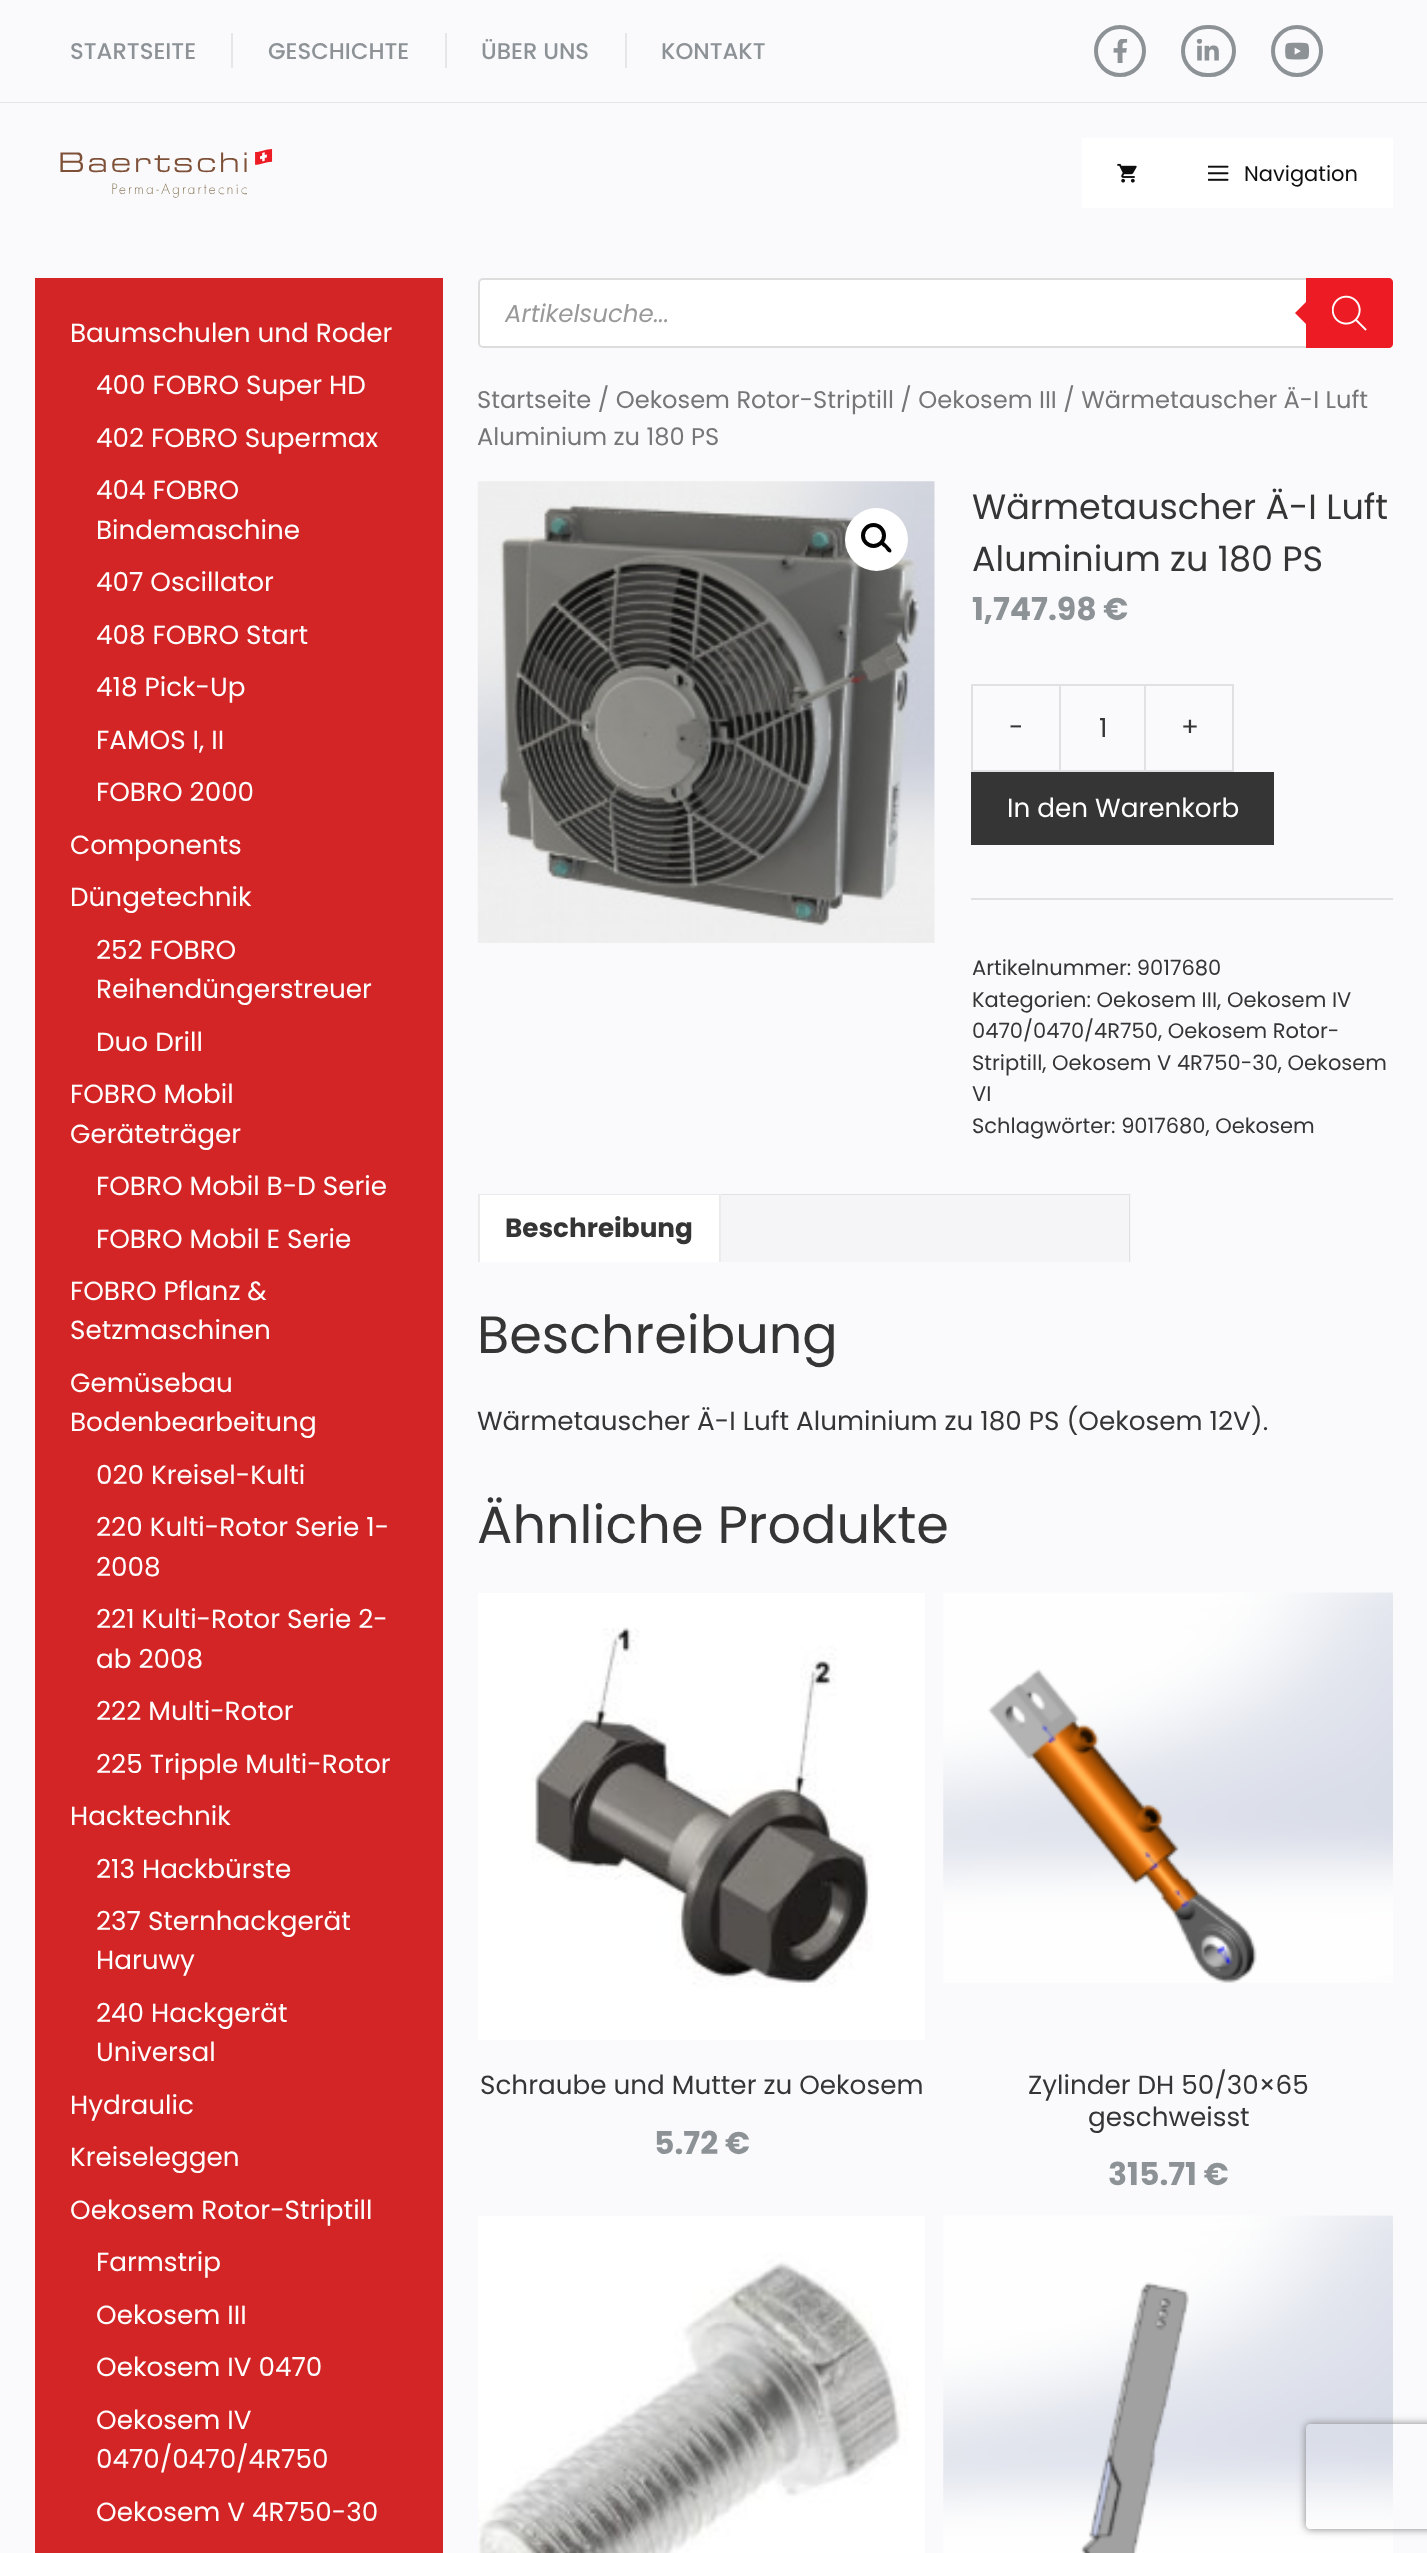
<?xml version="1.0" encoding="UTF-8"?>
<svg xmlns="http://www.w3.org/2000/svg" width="1427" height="2553">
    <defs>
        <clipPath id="clip1"><path d="M 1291 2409 H 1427 V 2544 H 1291 Z M 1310 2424 H 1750 C 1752 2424 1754 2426 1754 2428 V 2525 C 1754 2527 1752 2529 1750 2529 H 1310 C 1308 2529 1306 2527 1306 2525 V 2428 C 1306 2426 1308 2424 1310 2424 Z" clip-rule="evenodd"/></clipPath>
        <filter id="blur1" x="-50%" y="-200%" width="200%" height="500%"><feGaussianBlur stdDeviation="4.5"/></filter>
    </defs>
    <rect width="100%" height="100%" fill="#FAFAFC"/>
    <rect x="0" y="102" width="1427" height="1" fill="#E6E6E6"/>
    <rect x="231" y="33" width="2" height="35" fill="#E6E6E6"/>
    <text x="70" y="59" font-family="Poppins" font-size="22.75" font-weight="500" fill="#8D9297">STARTSEITE</text>
    <rect x="445" y="33" width="2" height="35" fill="#E6E6E6"/>
    <text x="268" y="59" font-family="Poppins" font-size="22.75" font-weight="500" fill="#8D9297">GESCHICHTE</text>
    <rect x="625" y="33" width="2" height="35" fill="#E6E6E6"/>
    <text x="481" y="59" font-family="Poppins" font-size="22.75" font-weight="500" fill="#8D9297">ÜBER UNS</text>
    <text x="661" y="59" font-family="Poppins" font-size="22.75" font-weight="500" fill="#8D9297">KONTAKT</text>
    <circle cx="1120" cy="51" r="24" fill="none" stroke="#8D9297" stroke-width="4"/>
    <image x="1113" y="39" width="15" height="24" href="img_01.png"/>
    <rect x="1183" y="27" width="51" height="48" rx="24" fill="none" stroke="#8D9297" stroke-width="4"/>
    <image x="1196" y="39" width="23" height="22" href="img_02.png"/>
    <circle cx="1297" cy="51" r="24" fill="none" stroke="#8D9297" stroke-width="4"/>
    <image x="1285" y="42" width="24" height="18" href="img_03.png"/>
    <image x="60" y="149" width="213" height="49" href="img_04.png"/>
    <rect x="1082" y="138" width="311" height="70" fill="#FFFFFF"/>
    <image x="1117" y="163" width="20" height="20" href="img_05.png"/>
    <image x="1208" y="165" width="21" height="16" href="img_06.png"/>
    <text x="1244" y="181" font-family="Poppins" font-size="21" fill="#0E0E0E">Navigation</text>
    <rect x="35" y="278" width="408" height="2275" fill="#D32525"/>
    <text x="70" y="342" font-family="Poppins" font-size="26.25" fill="#FFFFFF">Baumschulen und Roder</text>
    <text x="96" y="394" font-family="Poppins" font-size="26.25" fill="#FFFFFF">400 FOBRO Super HD</text>
    <text font-family="Poppins" font-size="26.25" fill="#FFFFFF">
        <tspan x="96" y="447">402 FOBRO Supermax</tspan>
        <tspan x="96" y="499">404 FOBRO</tspan>
        <tspan x="96" y="539">Bindemaschine</tspan>
        <tspan x="96" y="591">407 Oscillator</tspan>
    </text>
    <text font-family="Poppins" font-size="26.25" fill="#FFFFFF">
        <tspan x="96" y="644">408 FOBRO Start</tspan>
        <tspan x="96" y="696">418 Pick-Up</tspan>
    </text>
    <text font-family="Poppins" font-size="26.25" fill="#FFFFFF">
        <tspan x="96" y="749">FAMOS I, II</tspan>
        <tspan x="96" y="801">FOBRO 2000</tspan>
    </text>
    <text font-family="Poppins" font-size="26.25" fill="#FFFFFF">
        <tspan x="70" y="854">Components</tspan>
        <tspan x="70" y="906">Düngetechnik</tspan>
    </text>
    <text font-family="Poppins" font-size="26.25" fill="#FFFFFF">
        <tspan x="96" y="959">252 FOBRO</tspan>
        <tspan x="96" y="998">Reihendüngerstreuer</tspan>
    </text>
    <text x="96" y="1051" font-family="Poppins" font-size="26.25" fill="#FFFFFF">Duo Drill</text>
    <text font-family="Poppins" font-size="26.25" fill="#FFFFFF">
        <tspan x="70" y="1103">FOBRO Mobil</tspan>
        <tspan x="70" y="1143">Geräteträger</tspan>
    </text>
    <text x="96" y="1195" font-family="Poppins" font-size="26.25" fill="#FFFFFF">FOBRO Mobil B-D Serie</text>
    <text x="96" y="1248" font-family="Poppins" font-size="26.25" fill="#FFFFFF">FOBRO Mobil E Serie</text>
    <text font-family="Poppins" font-size="26.25" fill="#FFFFFF">
        <tspan x="70" y="1300">FOBRO Pflanz &amp;</tspan>
        <tspan x="70" y="1339">Setzmaschinen</tspan>
    </text>
    <text font-family="Poppins" font-size="26.25" fill="#FFFFFF">
        <tspan x="70" y="1392">Gemüsebau</tspan>
        <tspan x="70" y="1431">Bodenbearbeitung</tspan>
    </text>
    <text font-family="Poppins" font-size="26.25" fill="#FFFFFF">
        <tspan x="96" y="1484">020 Kreisel-Kulti</tspan>
        <tspan x="96" y="1536">220 Kulti-Rotor Serie 1-</tspan>
        <tspan x="96" y="1576">2008</tspan>
        <tspan x="96" y="1628">221 Kulti-Rotor Serie 2-</tspan>
        <tspan x="96" y="1668">ab 2008</tspan>
        <tspan x="96" y="1720">222 Multi-Rotor</tspan>
    </text>
    <text x="96" y="1773" font-family="Poppins" font-size="26.25" fill="#FFFFFF">225 Tripple Multi-Rotor</text>
    <text x="70" y="1825" font-family="Poppins" font-size="26.25" fill="#FFFFFF">Hacktechnik</text>
    <text font-family="Poppins" font-size="26.25" fill="#FFFFFF">
        <tspan x="96" y="1878">213 Hackbürste</tspan>
        <tspan x="96" y="1930">237 Sternhackgerät</tspan>
        <tspan x="96" y="1969">Haruwy</tspan>
    </text>
    <text font-family="Poppins" font-size="26.25" fill="#FFFFFF">
        <tspan x="96" y="2022">240 Hackgerät</tspan>
        <tspan x="96" y="2061">Universal</tspan>
    </text>
    <text font-family="Poppins" font-size="26.25" fill="#FFFFFF">
        <tspan x="70" y="2114">Hydraulic</tspan>
        <tspan x="70" y="2166">Kreiseleggen</tspan>
    </text>
    <text x="70" y="2219" font-family="Poppins" font-size="26.25" fill="#FFFFFF">Oekosem Rotor-Striptill</text>
    <text x="96" y="2271" font-family="Poppins" font-size="26.25" fill="#FFFFFF">Farmstrip</text>
    <text font-family="Poppins" font-size="26.25" fill="#FFFFFF">
        <tspan x="96" y="2324">Oekosem III</tspan>
        <tspan x="96" y="2376">Oekosem IV 0470</tspan>
    </text>
    <text font-family="Poppins" font-size="26.25" fill="#FFFFFF">
        <tspan x="96" y="2429">Oekosem IV</tspan>
        <tspan x="96" y="2468">0470/0470/4R750</tspan>
    </text>
    <text x="96" y="2521" font-family="Poppins" font-size="26.25" fill="#FFFFFF">Oekosem V 4R750-30</text>
    <rect x="479" y="279" width="913" height="68" rx="4" fill="#FFFFFF" stroke="#DDDDDD" stroke-width="2"/>
    <text x="505" y="322" font-family="Poppins" font-size="24.5" font-style="italic" fill="#999999">Artikelsuche...</text>
    <path d="M 1306 278 H 1389 C 1391 278 1393 280 1393 282 V 344 C 1393 346 1391 348 1389 348 H 1306 Z" fill="#ED1C24"/>
    <path d="M 1309 299 V 327 L 1295 313 Z" fill="#ED1C24"/>
    <image x="1332" y="295" width="35" height="36" href="img_07.png"/>
    <text font-family="Poppins" font-size="24.15" fill="#767676">
        <tspan x="477" y="408">Startseite / Oekosem Rotor-Striptill / Oekosem III / Wärmetauscher Ä-I Luft</tspan>
        <tspan x="477" y="445">Aluminium zu 180 PS</tspan>
    </text>
    <image x="477" y="481" width="458" height="462" href="img_08.png"/>
    <circle cx="876.5" cy="539.5" r="31.5" fill="#FFFFFF"/>
    <circle cx="873.5" cy="535.5" r="10.5" fill="none" stroke="#000000" stroke-width="4"/>
    <path d="M 881 542 C 883 540 886.5 544.5 887.5 545.5 C 888.5 547 893 550 891 552 C 889 554 886 549.5 885 548 C 884 547 879 544 881 542 Z" fill="#000000"/>
    <text font-family="Poppins" font-size="35" fill="#353535">
        <tspan x="972" y="519">Wärmetauscher Ä-I Luft</tspan>
        <tspan x="972" y="571">Aluminium zu 180 PS</tspan>
    </text>
    <text x="972" y="620" font-family="Poppins" font-size="31.5" font-weight="700" fill="#8D9297">1,747.98 €</text>
    <path d="M 971 684 H 1059 V 686 H 973 Z" fill="#E1E1E3"/>
    <path d="M 1059 772 H 971 L 973 770 H 1059 Z" fill="#E1E1E3"/>
    <path d="M 971 772 V 684 L 973 686 V 770 Z" fill="#000000" fill-opacity="0.1"/>
    <text x="1009" y="736" font-family="Poppins" font-size="26.25" fill="#353535">-</text>
    <rect x="1060" y="685" width="85" height="86" fill="none" stroke="#E1E1E3" stroke-width="2"/>
    <text x="1099" y="737" font-family="Poppins" font-size="26.25" fill="#353535">1</text>
    <path d="M 1146 684 H 1234 L 1232 686 H 1146 Z" fill="#E1E1E3"/>
    <path d="M 1234 684 V 772 L 1232 770 V 686 Z" fill="#000000" fill-opacity="0.1"/>
    <path d="M 1234 772 H 1146 V 770 H 1232 Z" fill="#000000" fill-opacity="0.1"/>
    <text x="1181" y="736" font-family="Poppins" font-size="26.25" fill="#353535">+</text>
    <rect x="971" y="772" width="303" height="73" fill="#353535"/>
    <text x="1007" y="817" font-family="Poppins" font-size="26.25" fill="#FFFFFF">In den Warenkorb</text>
    <rect x="971" y="898" width="422" height="2" fill="#E1E1E3"/>
    <text font-family="Poppins" font-size="21" fill="#353535">
        <tspan x="972" y="975">Artikelnummer: 9017680</tspan>
        <tspan x="972" y="1007">Kategorien: Oekosem III, Oekosem IV</tspan>
        <tspan x="972" y="1038">0470/0470/4R750, Oekosem Rotor-</tspan>
        <tspan x="972" y="1070">Striptill, Oekosem V 4R750-30, Oekosem</tspan>
        <tspan x="972" y="1101">VI</tspan>
        <tspan x="972" y="1133">Schlagwörter: 9017680, Oekosem</tspan>
    </text>
    <rect x="478" y="1194" width="243" height="68" fill="#FFFFFF"/>
    <path d="M 478 1194 H 721 L 719 1195 H 480 Z" fill="#EBEBEB"/>
    <path d="M 721 1194 V 1262 H 719 V 1195 Z" fill="#000000" fill-opacity="0.08"/>
    <path d="M 478 1262 V 1194 L 480 1195 V 1262 Z" fill="#000000" fill-opacity="0.08"/>
    <text x="505" y="1237" font-family="Poppins" font-size="26.25" font-weight="700" fill="#353535">Beschreibung</text>
    <rect x="721" y="1194" width="410" height="68" fill="#F5F5F7"/>
    <path d="M 721 1194 H 1130 L 1129 1195 H 721 Z" fill="#E1E1E3"/>
    <path d="M 1130 1194 V 1262 H 1129 V 1195 Z" fill="#000000" fill-opacity="0.08"/>
    <text x="477" y="1353" font-family="Poppins" font-size="52.5" fill="#353535">Beschreibung</text>
    <text x="477" y="1430" font-family="Poppins" font-size="26.25" fill="#353535">Wärmetauscher Ä-I Luft Aluminium zu 180 PS (Oekosem 12V).</text>
    <text x="477" y="1543" font-family="Poppins" font-size="52.5" fill="#353535">Ähnliche Produkte</text>
    <image x="478" y="1593" width="447" height="447" href="img_09.png"/>
    <text x="480" y="2094" font-family="Poppins" font-size="26.25" fill="#353535">Schraube und Mutter zu Oekosem</text>
    <text x="654" y="2154" font-family="Poppins" font-size="31.5" font-weight="700" fill="#8D9297">5.72 €</text>
    <image x="943" y="1592" width="450" height="391" href="img_10.png"/>
    <text x="1028" y="2094" font-family="Poppins" font-size="26.25" fill="#353535">Zylinder DH 50/30×65</text>
    <text x="1088" y="2126" font-family="Poppins" font-size="26.25" fill="#353535">geschweisst</text>
    <text x="1108" y="2185" font-family="Poppins" font-size="31.5" font-weight="700" fill="#8D9297">315.71 €</text>
    <image x="478" y="2216" width="447" height="337" href="img_11.png"/>
    <image x="943" y="2215" width="450" height="338" href="img_12.png"/>
    <g clip-path="url(#clip1)">
        <rect x="1306" y="2424" width="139" height="105" rx="4" fill="#808080" filter="url(#blur1)"/>
    </g>
</svg>
